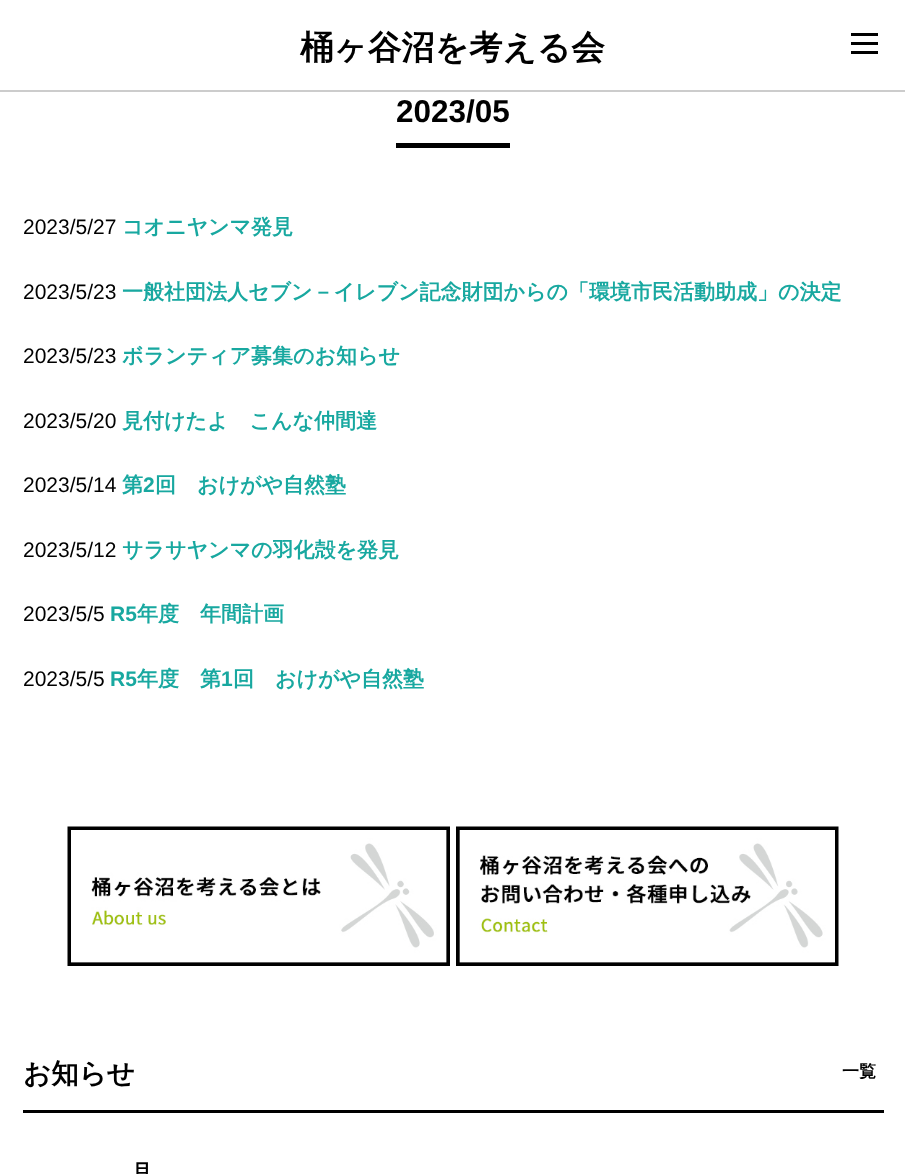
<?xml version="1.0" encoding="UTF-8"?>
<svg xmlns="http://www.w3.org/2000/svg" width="905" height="1174">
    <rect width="100%" height="100%" fill="#FFFFFF"/>
    <rect x="0" y="90" width="905" height="2" fill="#CCCCCC"/>
    <text x="300" y="59" font-family="WenQuanYi Zen Hei" font-size="33.5" font-weight="700" fill="#000000">桶ヶ谷沼を考える会</text>
    <rect x="851" y="42" width="27" height="3" fill="#000000"/>
    <rect x="851" y="33" width="27" height="3" fill="#000000"/>
    <rect x="851" y="51" width="27" height="3" fill="#000000"/>
    <text x="396" y="122" font-family="Liberation Sans" font-size="31.5" font-weight="700" fill="#000000">2023/05</text>
    <rect x="396" y="143" width="114" height="5" fill="#000000"/>
    <text x="23" y="234" font-family="Liberation Sans" font-size="21" fill="#000000">2023/5/27</text>
    <text x="122" y="234" font-family="WenQuanYi Zen Hei" font-size="21" font-weight="700" fill="#18A8A0">コオニヤンマ発見</text>
    <text x="23" y="299" font-family="Liberation Sans" font-size="21" fill="#000000">2023/5/23</text>
    <text x="122" y="299" font-family="WenQuanYi Zen Hei" font-size="21" font-weight="700" fill="#18A8A0">一般社団法人セブン－イレブン記念財団からの「環境市民活動助成」の決定</text>
    <text x="23" y="363" font-family="Liberation Sans" font-size="21" fill="#000000">2023/5/23</text>
    <text x="122" y="363" font-family="WenQuanYi Zen Hei" font-size="21" font-weight="700" fill="#18A8A0">ボランティア募集のお知らせ</text>
    <text x="23" y="428" font-family="Liberation Sans" font-size="21" fill="#000000">2023/5/20</text>
    <text x="122" y="428" font-family="WenQuanYi Zen Hei" font-size="21" font-weight="700" fill="#18A8A0">見付けたよ　こんな仲間達</text>
    <text x="23" y="492" font-family="Liberation Sans" font-size="21" fill="#000000">2023/5/14</text>
    <text x="122" y="492" font-family="WenQuanYi Zen Hei" font-size="21" font-weight="700" fill="#18A8A0">第</text>
    <text x="143" y="492" font-family="Liberation Sans" font-size="21" font-weight="700" fill="#18A8A0">2</text>
    <text x="155" y="492" font-family="WenQuanYi Zen Hei" font-size="21" font-weight="700" fill="#18A8A0">回　おけがや自然塾</text>
    <text x="23" y="557" font-family="Liberation Sans" font-size="21" fill="#000000">2023/5/12</text>
    <text x="122" y="557" font-family="WenQuanYi Zen Hei" font-size="21" font-weight="700" fill="#18A8A0">サラサヤンマの羽化殻を発見</text>
    <text x="23" y="621" font-family="Liberation Sans" font-size="21" fill="#000000">2023/5/5</text>
    <text x="110" y="621" font-family="Liberation Sans" font-size="21" font-weight="700" fill="#18A8A0">R5</text>
    <text x="137" y="621" font-family="WenQuanYi Zen Hei" font-size="21" font-weight="700" fill="#18A8A0">年度　年間計画</text>
    <text x="23" y="686" font-family="Liberation Sans" font-size="21" fill="#000000">2023/5/5</text>
    <text x="110" y="686" font-family="Liberation Sans" font-size="21" font-weight="700" fill="#18A8A0">R5</text>
    <text x="137" y="686" font-family="WenQuanYi Zen Hei" font-size="21" font-weight="700" fill="#18A8A0">年度　第</text>
    <text x="221" y="686" font-family="Liberation Sans" font-size="21" font-weight="700" fill="#18A8A0">1</text>
    <text x="233" y="686" font-family="WenQuanYi Zen Hei" font-size="21" font-weight="700" fill="#18A8A0">回　おけがや自然塾</text>
    <image x="67" y="826" width="383" height="140" href="img_01.png"/>
    <image x="456" y="826" width="383" height="140" href="img_02.png"/>
    <rect x="23" y="1110" width="861" height="3" fill="#000000"/>
    <text x="23" y="1083" font-family="WenQuanYi Zen Hei" font-size="27.5" font-weight="700" fill="#000000">お知らせ</text>
    <text x="842" y="1077" font-family="WenQuanYi Zen Hei" font-size="17" font-weight="700" fill="#000000">一覧</text>
    <text x="131" y="1179" font-family="WenQuanYi Zen Hei" font-size="21" font-weight="700" fill="#000000">月</text>
</svg>
